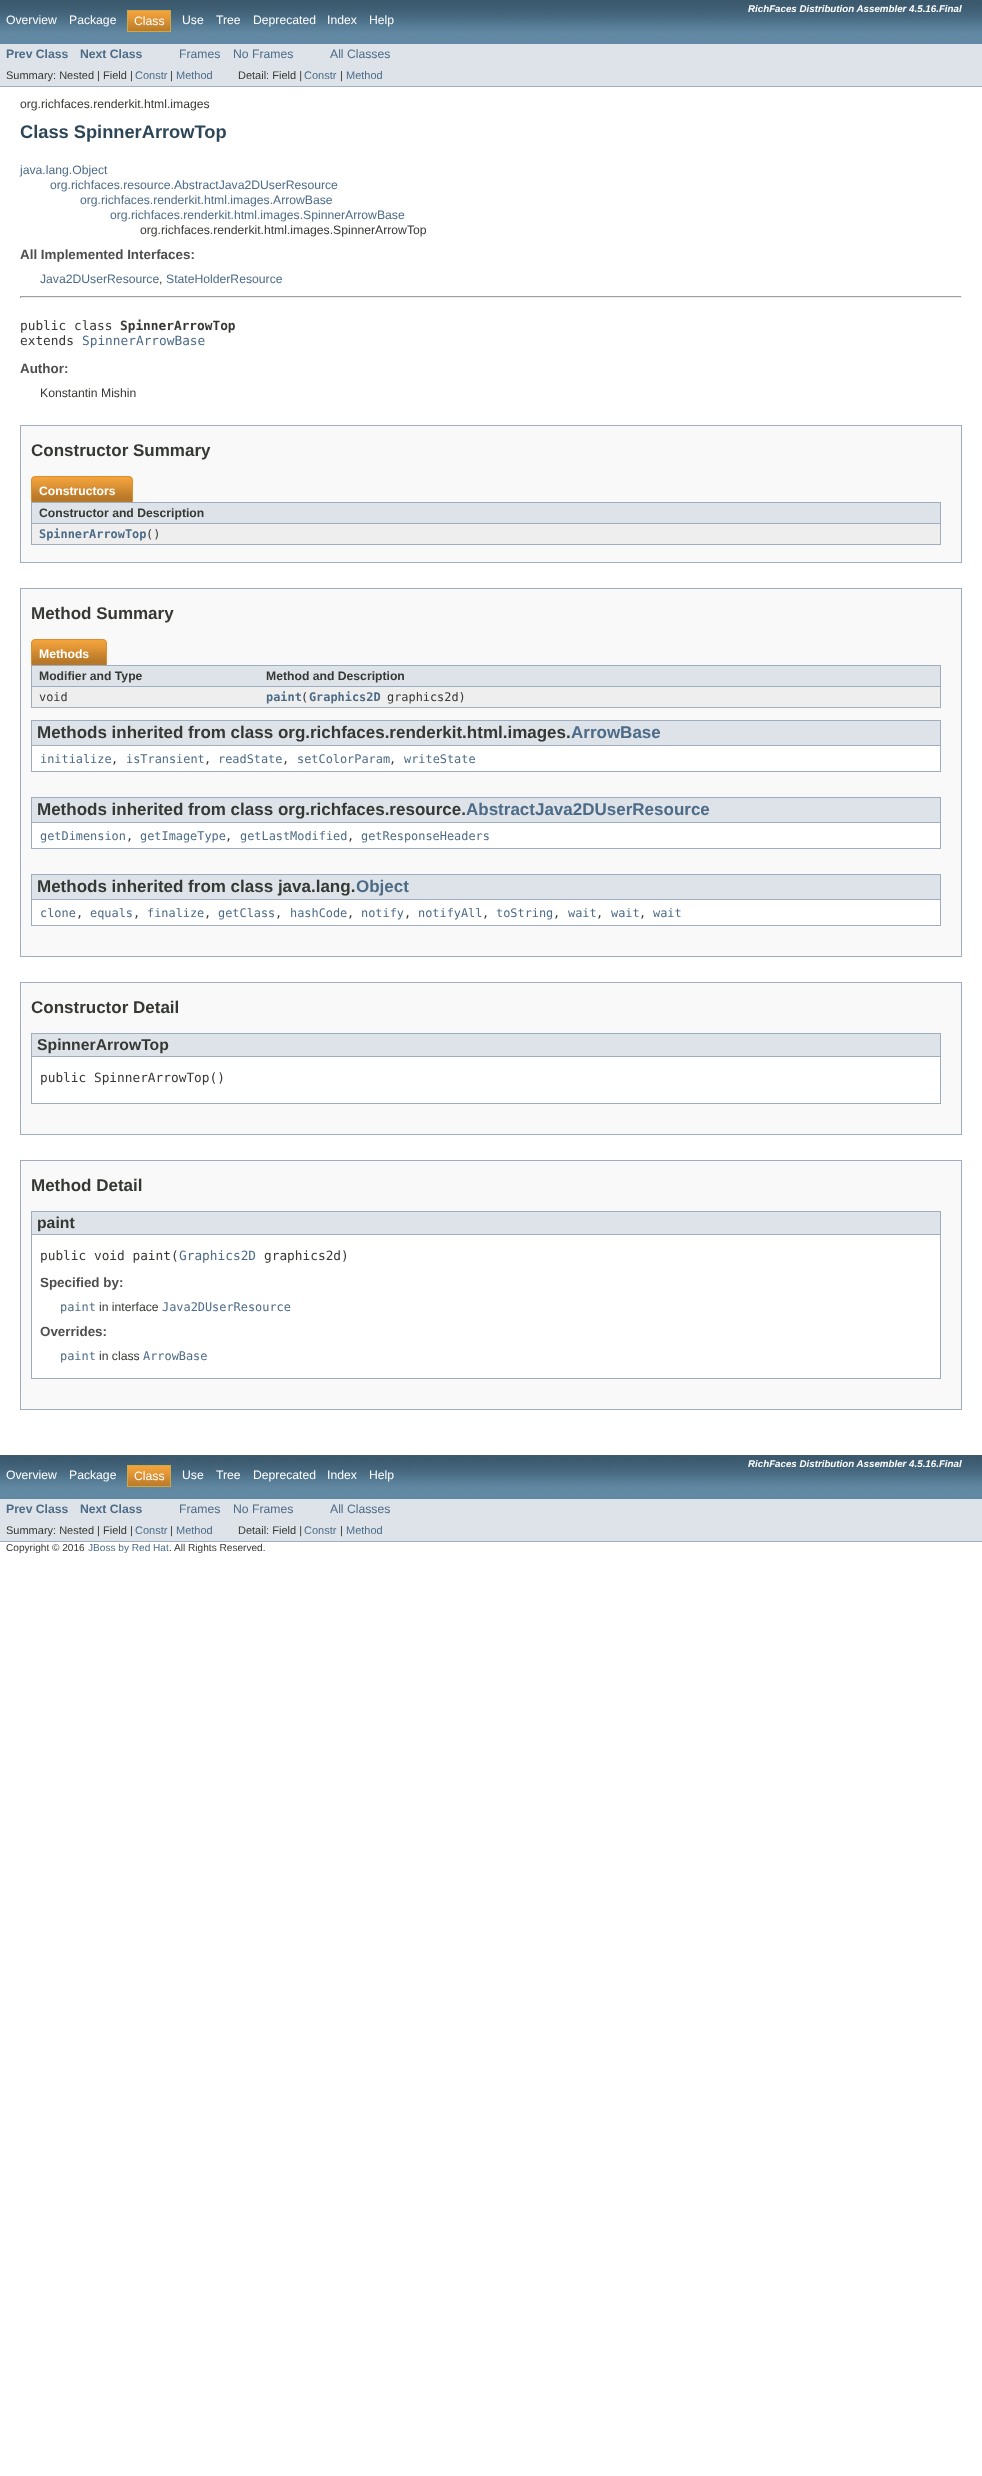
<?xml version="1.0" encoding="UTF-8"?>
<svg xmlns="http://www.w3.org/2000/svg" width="982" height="2476">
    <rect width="100%" height="100%" fill="#FFFFFF"/>
    <image x="0" y="0" width="982" height="44" href="img_01.png"/>
    <text x="748" y="12" font-family="Liberation Sans" font-size="9.75" font-weight="700" font-style="italic" fill="#FFFFFF">RichFaces Distribution Assembler 4.5.16.Final</text>
    <text x="6" y="24" font-family="Liberation Sans" font-size="12.2" fill="#FFFFFF">Overview</text>
    <text x="69" y="24" font-family="Liberation Sans" font-size="12.2" fill="#FFFFFF">Package</text>
    <image x="128" y="11" width="42" height="20" href="img_02.png"/>
    <rect x="127.5" y="10.5" width="43" height="21" fill="none" stroke="#C9AA44"/>
    <text x="134" y="25" font-family="Liberation Sans" font-size="12.2" fill="#FFFFFF">Class</text>
    <text x="182" y="24" font-family="Liberation Sans" font-size="12.2" fill="#FFFFFF">Use</text>
    <text x="216" y="24" font-family="Liberation Sans" font-size="12.2" fill="#FFFFFF">Tree</text>
    <text x="253" y="24" font-family="Liberation Sans" font-size="12.2" fill="#FFFFFF">Deprecated</text>
    <text x="327" y="24" font-family="Liberation Sans" font-size="12.2" fill="#FFFFFF">Index</text>
    <text x="369" y="24" font-family="Liberation Sans" font-size="12.2" fill="#FFFFFF">Help</text>
    <rect x="0" y="44" width="982" height="42" fill="#DEE3E9"/>
    <rect x="0" y="86" width="982" height="1" fill="#9EADC0"/>
    <text x="6" y="58" font-family="Liberation Sans" font-size="12.2" font-weight="700" fill="#4C6B87">Prev Class</text>
    <text x="80" y="58" font-family="Liberation Sans" font-size="12.2" font-weight="700" fill="#4C6B87">Next Class</text>
    <text x="179" y="58" font-family="Liberation Sans" font-size="12.2" fill="#4C6B87">Frames</text>
    <text x="233" y="58" font-family="Liberation Sans" font-size="12.2" fill="#4C6B87">No Frames</text>
    <text x="330" y="58" font-family="Liberation Sans" font-size="12.2" fill="#4C6B87">All Classes</text>
    <text x="6" y="79" font-family="Liberation Sans" font-size="11" fill="#353833">Summary: Nested | Field |</text>
    <text x="135" y="79" font-family="Liberation Sans" font-size="11" fill="#4C6B87">Constr</text>
    <text x="170" y="79" font-family="Liberation Sans" font-size="11" fill="#353833">|</text>
    <text x="176" y="79" font-family="Liberation Sans" font-size="11" fill="#4C6B87">Method</text>
    <text x="238" y="79" font-family="Liberation Sans" font-size="11" fill="#353833">Detail: Field |</text>
    <text x="304" y="79" font-family="Liberation Sans" font-size="11" fill="#4C6B87">Constr</text>
    <text x="340" y="79" font-family="Liberation Sans" font-size="11" fill="#353833">|</text>
    <text x="346" y="79" font-family="Liberation Sans" font-size="11" fill="#4C6B87">Method</text>
    <text x="20" y="108" font-family="Liberation Sans" font-size="12.2" fill="#353833">org.richfaces.renderkit.html.images</text>
    <text x="20" y="138" font-family="Liberation Sans" font-size="18.25" font-weight="700" fill="#2C4557">Class SpinnerArrowTop</text>
    <text x="20" y="174" font-family="Liberation Sans" font-size="12.2" fill="#4C6B87">java.lang.Object</text>
    <text x="50" y="189" font-family="Liberation Sans" font-size="12.2" fill="#4C6B87">org.richfaces.resource.AbstractJava2DUserResource</text>
    <text x="80" y="204" font-family="Liberation Sans" font-size="12.2" fill="#4C6B87">org.richfaces.renderkit.html.images.ArrowBase</text>
    <text x="110" y="219" font-family="Liberation Sans" font-size="12.2" fill="#4C6B87">org.richfaces.renderkit.html.images.SpinnerArrowBase</text>
    <text x="140" y="234" font-family="Liberation Sans" font-size="12.2" fill="#353833">org.richfaces.renderkit.html.images.SpinnerArrowTop</text>
    <text x="20" y="259" font-family="Liberation Sans" font-size="13.4" font-weight="700" fill="#4E4E4E">All Implemented Interfaces:</text>
    <text x="40" y="283" font-family="Liberation Sans" font-size="12.2" fill="#4C6B87">Java2DUserResource</text>
    <text x="159" y="283" font-family="Liberation Sans" font-size="12.2" fill="#353833">,</text>
    <text x="166" y="283" font-family="Liberation Sans" font-size="12.2" fill="#4C6B87">StateHolderResource</text>
    <rect x="20" y="296" width="942" height="1" fill="#9F9F9F"/>
    <rect x="961" y="296" width="1" height="2" fill="#EEEEEE"/>
    <rect x="20" y="297" width="942" height="1" fill="#EEEEEE"/>
    <rect x="20" y="296" width="1" height="2" fill="#9F9F9F"/>
    <text x="20" y="330" font-family="DejaVu Sans Mono" font-size="12.8" fill="#353833">public class</text>
    <text x="120" y="330" font-family="DejaVu Sans Mono" font-size="12.8" font-weight="700" fill="#353833">SpinnerArrowTop</text>
    <text x="20" y="345" font-family="DejaVu Sans Mono" font-size="12.8" fill="#353833">extends</text>
    <text x="82" y="345" font-family="DejaVu Sans Mono" font-size="12.8" fill="#4C6B87">SpinnerArrowBase</text>
    <text x="20" y="373" font-family="Liberation Sans" font-size="13.4" font-weight="700" fill="#4E4E4E">Author:</text>
    <text x="40" y="397" font-family="Liberation Sans" font-size="12.2" fill="#353833">Konstantin Mishin</text>
    <rect x="20.5" y="425.5" width="941" height="137" fill="#F9F9F9" stroke="#9EADC0"/>
    <text x="31" y="456" font-family="Liberation Sans" font-size="17" font-weight="700" fill="#353833">Constructor Summary</text>
    <rect x="31" y="544" width="910" height="1" fill="#9EADC0"/>
    <image x="31" y="476" width="84" height="26" href="img_03.png"/>
    <text x="39" y="495" font-family="Liberation Sans" font-size="12.2" font-weight="700" fill="#FFFFFF">Constructors</text>
    <image x="115" y="476" width="18" height="26" href="img_04.png"/>
    <rect x="31.5" y="502.5" width="909" height="21" fill="#DEE3E9" stroke="#9EADC0"/>
    <text x="39" y="517" font-family="Liberation Sans" font-size="12.2" font-weight="700" fill="#353833">Constructor and Description</text>
    <rect x="32" y="524" width="908" height="20" fill="#EEEEEF"/>
    <rect x="940" y="524" width="1" height="20" fill="#9EADC0"/>
    <rect x="31" y="524" width="1" height="20" fill="#9EADC0"/>
    <text x="39" y="538" font-family="DejaVu Sans Mono" font-size="11.9" font-weight="700" fill="#4C6B87">SpinnerArrowTop</text>
    <text x="146" y="538" font-family="DejaVu Sans Mono" font-size="11.9" fill="#353833">()</text>
    <rect x="20.5" y="588.5" width="941" height="368" fill="#F9F9F9" stroke="#9EADC0"/>
    <text x="31" y="619" font-family="Liberation Sans" font-size="17" font-weight="700" fill="#353833">Method Summary</text>
    <rect x="31" y="707" width="910" height="1" fill="#9EADC0"/>
    <image x="31" y="639" width="58" height="26" href="img_05.png"/>
    <text x="39" y="658" font-family="Liberation Sans" font-size="12.2" font-weight="700" fill="#FFFFFF">Methods</text>
    <image x="89" y="639" width="18" height="26" href="img_04.png"/>
    <rect x="32" y="666" width="908" height="20" fill="#DEE3E9"/>
    <rect x="31" y="665" width="910" height="1" fill="#9EADC0"/>
    <rect x="31" y="686" width="228" height="1" fill="#9EADC0"/>
    <rect x="31" y="665" width="1" height="42" fill="#9EADC0"/>
    <text x="39" y="680" font-family="Liberation Sans" font-size="12.2" font-weight="700" fill="#353833">Modifier and Type</text>
    <rect x="940" y="665" width="1" height="42" fill="#9EADC0"/>
    <rect x="259" y="686" width="682" height="1" fill="#9EADC0"/>
    <text x="266" y="680" font-family="Liberation Sans" font-size="12.2" font-weight="700" fill="#353833">Method and Description</text>
    <rect x="32" y="687" width="908" height="20" fill="#EEEEEF"/>
    <text x="39" y="701" font-family="DejaVu Sans Mono" font-size="11.9" fill="#353833">void</text>
    <text x="266" y="701" font-family="DejaVu Sans Mono" font-size="11.9" font-weight="700" fill="#4C6B87">paint Graphics2D</text>
    <text x="301" y="701" font-family="DejaVu Sans Mono" font-size="11.9" fill="#353833">(</text>
    <text x="387" y="701" font-family="DejaVu Sans Mono" font-size="11.9" fill="#353833">graphics2d)</text>
    <rect x="32" y="746" width="908" height="25" fill="#FFFFFF"/>
    <rect x="940" y="720" width="1" height="52" fill="#9EADC0"/>
    <rect x="31" y="771" width="910" height="1" fill="#9EADC0"/>
    <rect x="31" y="720" width="1" height="52" fill="#9EADC0"/>
    <rect x="32" y="721" width="908" height="24" fill="#DEE3E9"/>
    <rect x="32" y="720" width="908" height="1" fill="#9EADC0"/>
    <rect x="32" y="745" width="908" height="1" fill="#9EADC0"/>
    <text x="37" y="738" font-family="Liberation Sans" font-size="17" font-weight="700" fill="#353833">Methods inherited from class org.richfaces.renderkit.html.images.</text>
    <text x="571" y="738" font-family="Liberation Sans" font-size="17" font-weight="700" fill="#4C6B87">ArrowBase</text>
    <text x="40" y="763" font-family="DejaVu Sans Mono" font-size="11.9" fill="#4C6B87">initialize</text>
    <text x="111" y="763" font-family="DejaVu Sans Mono" font-size="11.9" fill="#353833">,</text>
    <text x="126" y="763" font-family="DejaVu Sans Mono" font-size="11.9" fill="#4C6B87">isTransient</text>
    <text x="204" y="763" font-family="DejaVu Sans Mono" font-size="11.9" fill="#353833">,</text>
    <text x="218" y="763" font-family="DejaVu Sans Mono" font-size="11.9" fill="#4C6B87">readState</text>
    <text x="282" y="763" font-family="DejaVu Sans Mono" font-size="11.9" fill="#353833">,</text>
    <text x="297" y="763" font-family="DejaVu Sans Mono" font-size="11.9" fill="#4C6B87">setColorParam</text>
    <text x="389" y="763" font-family="DejaVu Sans Mono" font-size="11.9" fill="#353833">,</text>
    <text x="404" y="763" font-family="DejaVu Sans Mono" font-size="11.9" fill="#4C6B87">writeState</text>
    <rect x="32" y="823" width="908" height="25" fill="#FFFFFF"/>
    <rect x="940" y="797" width="1" height="52" fill="#9EADC0"/>
    <rect x="31" y="848" width="910" height="1" fill="#9EADC0"/>
    <rect x="31" y="797" width="1" height="52" fill="#9EADC0"/>
    <rect x="32" y="798" width="908" height="24" fill="#DEE3E9"/>
    <rect x="32" y="797" width="908" height="1" fill="#9EADC0"/>
    <rect x="32" y="822" width="908" height="1" fill="#9EADC0"/>
    <text x="37" y="815" font-family="Liberation Sans" font-size="17" font-weight="700" fill="#353833">Methods inherited from class org.richfaces.resource.</text>
    <text x="466" y="815" font-family="Liberation Sans" font-size="17" font-weight="700" fill="#4C6B87">AbstractJava2DUserResource</text>
    <text x="40" y="840" font-family="DejaVu Sans Mono" font-size="11.9" fill="#4C6B87">getDimension</text>
    <text x="126" y="840" font-family="DejaVu Sans Mono" font-size="11.9" fill="#353833">,</text>
    <text x="140" y="840" font-family="DejaVu Sans Mono" font-size="11.9" fill="#4C6B87">getImageType</text>
    <text x="225" y="840" font-family="DejaVu Sans Mono" font-size="11.9" fill="#353833">,</text>
    <text x="240" y="840" font-family="DejaVu Sans Mono" font-size="11.9" fill="#4C6B87">getLastModified</text>
    <text x="347" y="840" font-family="DejaVu Sans Mono" font-size="11.9" fill="#353833">,</text>
    <text x="361" y="840" font-family="DejaVu Sans Mono" font-size="11.9" fill="#4C6B87">getResponseHeaders</text>
    <rect x="32" y="900" width="908" height="25" fill="#FFFFFF"/>
    <rect x="940" y="874" width="1" height="52" fill="#9EADC0"/>
    <rect x="31" y="925" width="910" height="1" fill="#9EADC0"/>
    <rect x="31" y="874" width="1" height="52" fill="#9EADC0"/>
    <rect x="32" y="875" width="908" height="24" fill="#DEE3E9"/>
    <rect x="32" y="874" width="908" height="1" fill="#9EADC0"/>
    <rect x="32" y="899" width="908" height="1" fill="#9EADC0"/>
    <text x="37" y="892" font-family="Liberation Sans" font-size="17" font-weight="700" fill="#353833">Methods inherited from class java.lang.</text>
    <text x="356" y="892" font-family="Liberation Sans" font-size="17" font-weight="700" fill="#4C6B87">Object</text>
    <text x="40" y="917" font-family="DejaVu Sans Mono" font-size="11.9" fill="#4C6B87">clone</text>
    <text x="76" y="917" font-family="DejaVu Sans Mono" font-size="11.9" fill="#353833">,</text>
    <text x="90" y="917" font-family="DejaVu Sans Mono" font-size="11.9" fill="#4C6B87">equals</text>
    <text x="133" y="917" font-family="DejaVu Sans Mono" font-size="11.9" fill="#353833">,</text>
    <text x="147" y="917" font-family="DejaVu Sans Mono" font-size="11.9" fill="#4C6B87">finalize</text>
    <text x="204" y="917" font-family="DejaVu Sans Mono" font-size="11.9" fill="#353833">,</text>
    <text x="218" y="917" font-family="DejaVu Sans Mono" font-size="11.9" fill="#4C6B87">getClass</text>
    <text x="275" y="917" font-family="DejaVu Sans Mono" font-size="11.9" fill="#353833">,</text>
    <text x="290" y="917" font-family="DejaVu Sans Mono" font-size="11.9" fill="#4C6B87">hashCode</text>
    <text x="347" y="917" font-family="DejaVu Sans Mono" font-size="11.9" fill="#353833">,</text>
    <text x="361" y="917" font-family="DejaVu Sans Mono" font-size="11.9" fill="#4C6B87">notify</text>
    <text x="404" y="917" font-family="DejaVu Sans Mono" font-size="11.9" fill="#353833">,</text>
    <text x="418" y="917" font-family="DejaVu Sans Mono" font-size="11.9" fill="#4C6B87">notifyAll</text>
    <text x="482" y="917" font-family="DejaVu Sans Mono" font-size="11.9" fill="#353833">,</text>
    <text x="496" y="917" font-family="DejaVu Sans Mono" font-size="11.9" fill="#4C6B87">toString</text>
    <text x="553" y="917" font-family="DejaVu Sans Mono" font-size="11.9" fill="#353833">,</text>
    <text x="568" y="917" font-family="DejaVu Sans Mono" font-size="11.9" fill="#4C6B87">wait</text>
    <text x="596" y="917" font-family="DejaVu Sans Mono" font-size="11.9" fill="#353833">,</text>
    <text x="611" y="917" font-family="DejaVu Sans Mono" font-size="11.9" fill="#4C6B87">wait</text>
    <text x="639" y="917" font-family="DejaVu Sans Mono" font-size="11.9" fill="#353833">,</text>
    <text x="653" y="917" font-family="DejaVu Sans Mono" font-size="11.9" fill="#4C6B87">wait</text>
    <rect x="20.5" y="982.5" width="941" height="152" fill="#F9F9F9" stroke="#9EADC0"/>
    <text x="31" y="1013" font-family="Liberation Sans" font-size="17" font-weight="700" fill="#353833">Constructor Detail</text>
    <rect x="32" y="1057" width="908" height="46" fill="#FFFFFF"/>
    <rect x="940" y="1033" width="1" height="71" fill="#9EADC0"/>
    <rect x="31" y="1103" width="910" height="1" fill="#9EADC0"/>
    <rect x="31" y="1033" width="1" height="71" fill="#9EADC0"/>
    <rect x="32" y="1034" width="908" height="22" fill="#DEE3E9"/>
    <rect x="32" y="1033" width="908" height="1" fill="#9EADC0"/>
    <rect x="32" y="1056" width="908" height="1" fill="#9EADC0"/>
    <text x="37" y="1050" font-family="Liberation Sans" font-size="15.75" font-weight="700" fill="#353833">SpinnerArrowTop</text>
    <text x="40" y="1082" font-family="DejaVu Sans Mono" font-size="12.8" fill="#353833">public SpinnerArrowTop()</text>
    <rect x="20.5" y="1160.5" width="941" height="249" fill="#F9F9F9" stroke="#9EADC0"/>
    <text x="31" y="1191" font-family="Liberation Sans" font-size="17" font-weight="700" fill="#353833">Method Detail</text>
    <rect x="32" y="1235" width="908" height="143" fill="#FFFFFF"/>
    <rect x="940" y="1211" width="1" height="168" fill="#9EADC0"/>
    <rect x="31" y="1378" width="910" height="1" fill="#9EADC0"/>
    <rect x="31" y="1211" width="1" height="168" fill="#9EADC0"/>
    <rect x="32" y="1212" width="908" height="22" fill="#DEE3E9"/>
    <rect x="32" y="1211" width="908" height="1" fill="#9EADC0"/>
    <rect x="32" y="1234" width="908" height="1" fill="#9EADC0"/>
    <text x="37" y="1228" font-family="Liberation Sans" font-size="15.75" font-weight="700" fill="#353833">paint</text>
    <text x="40" y="1260" font-family="DejaVu Sans Mono" font-size="12.8" fill="#353833">public void paint(</text>
    <text x="179" y="1260" font-family="DejaVu Sans Mono" font-size="12.8" fill="#4C6B87">Graphics2D</text>
    <text x="264" y="1260" font-family="DejaVu Sans Mono" font-size="12.8" fill="#353833">graphics2d)</text>
    <text x="40" y="1287" font-family="Liberation Sans" font-size="13.4" font-weight="700" fill="#4E4E4E">Specified by:</text>
    <text x="60" y="1311" font-family="DejaVu Sans Mono" font-size="11.9" fill="#4C6B87">paint</text>
    <text x="99" y="1311" font-family="Liberation Sans" font-size="12.2" fill="#353833">in interface</text>
    <text x="162" y="1311" font-family="DejaVu Sans Mono" font-size="11.9" fill="#4C6B87">Java2DUserResource</text>
    <text x="40" y="1336" font-family="Liberation Sans" font-size="13.4" font-weight="700" fill="#4E4E4E">Overrides:</text>
    <text x="60" y="1360" font-family="DejaVu Sans Mono" font-size="11.9" fill="#4C6B87">paint</text>
    <text x="99" y="1360" font-family="Liberation Sans" font-size="12.2" fill="#353833">in class</text>
    <text x="143" y="1360" font-family="DejaVu Sans Mono" font-size="11.9" fill="#4C6B87">ArrowBase</text>
    <image x="0" y="1455" width="982" height="44" href="img_01.png"/>
    <text x="748" y="1467" font-family="Liberation Sans" font-size="9.75" font-weight="700" font-style="italic" fill="#FFFFFF">RichFaces Distribution Assembler 4.5.16.Final</text>
    <text x="6" y="1479" font-family="Liberation Sans" font-size="12.2" fill="#FFFFFF">Overview</text>
    <text x="69" y="1479" font-family="Liberation Sans" font-size="12.2" fill="#FFFFFF">Package</text>
    <image x="128" y="1466" width="42" height="20" href="img_02.png"/>
    <rect x="127.5" y="1465.5" width="43" height="21" fill="none" stroke="#C9AA44"/>
    <text x="134" y="1480" font-family="Liberation Sans" font-size="12.2" fill="#FFFFFF">Class</text>
    <text x="182" y="1479" font-family="Liberation Sans" font-size="12.2" fill="#FFFFFF">Use</text>
    <text x="216" y="1479" font-family="Liberation Sans" font-size="12.2" fill="#FFFFFF">Tree</text>
    <text x="253" y="1479" font-family="Liberation Sans" font-size="12.2" fill="#FFFFFF">Deprecated</text>
    <text x="327" y="1479" font-family="Liberation Sans" font-size="12.2" fill="#FFFFFF">Index</text>
    <text x="369" y="1479" font-family="Liberation Sans" font-size="12.2" fill="#FFFFFF">Help</text>
    <rect x="0" y="1499" width="982" height="42" fill="#DEE3E9"/>
    <rect x="0" y="1541" width="982" height="1" fill="#9EADC0"/>
    <text x="6" y="1513" font-family="Liberation Sans" font-size="12.2" font-weight="700" fill="#4C6B87">Prev Class</text>
    <text x="80" y="1513" font-family="Liberation Sans" font-size="12.2" font-weight="700" fill="#4C6B87">Next Class</text>
    <text x="179" y="1513" font-family="Liberation Sans" font-size="12.2" fill="#4C6B87">Frames</text>
    <text x="233" y="1513" font-family="Liberation Sans" font-size="12.2" fill="#4C6B87">No Frames</text>
    <text x="330" y="1513" font-family="Liberation Sans" font-size="12.2" fill="#4C6B87">All Classes</text>
    <text x="6" y="1534" font-family="Liberation Sans" font-size="11" fill="#353833">Summary: Nested | Field |</text>
    <text x="135" y="1534" font-family="Liberation Sans" font-size="11" fill="#4C6B87">Constr</text>
    <text x="170" y="1534" font-family="Liberation Sans" font-size="11" fill="#353833">|</text>
    <text x="176" y="1534" font-family="Liberation Sans" font-size="11" fill="#4C6B87">Method</text>
    <text x="238" y="1534" font-family="Liberation Sans" font-size="11" fill="#353833">Detail: Field |</text>
    <text x="304" y="1534" font-family="Liberation Sans" font-size="11" fill="#4C6B87">Constr</text>
    <text x="340" y="1534" font-family="Liberation Sans" font-size="11" fill="#353833">|</text>
    <text x="346" y="1534" font-family="Liberation Sans" font-size="11" fill="#4C6B87">Method</text>
    <text x="6" y="1551" font-family="Liberation Sans" font-size="10.1" fill="#353833">Copyright © 2016</text>
    <text x="88" y="1551" font-family="Liberation Sans" font-size="10.1" fill="#4C6B87">JBoss by Red Hat</text>
    <text x="169" y="1551" font-family="Liberation Sans" font-size="10.1" fill="#353833">. All Rights Reserved.</text>
</svg>
